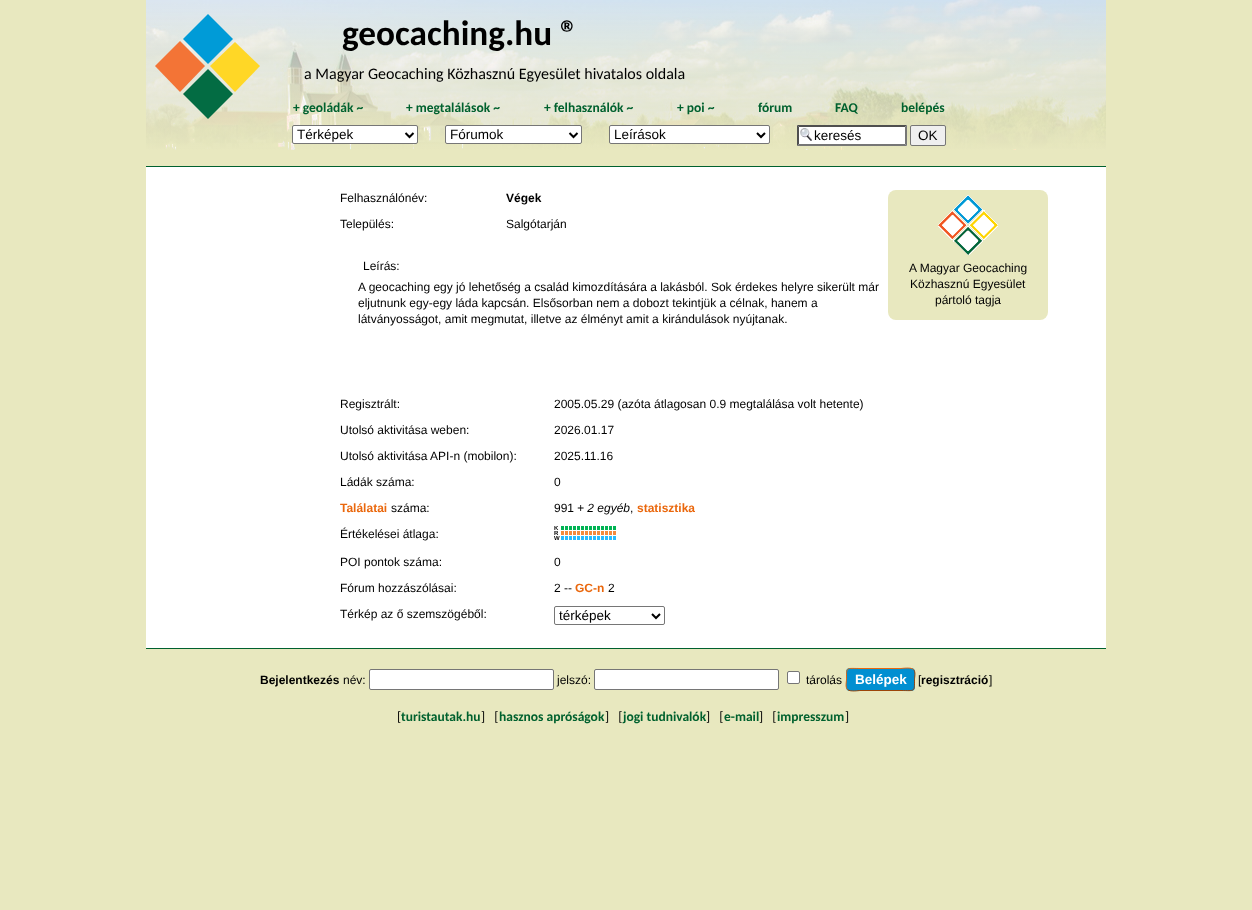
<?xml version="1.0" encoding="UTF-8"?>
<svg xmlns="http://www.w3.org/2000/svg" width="1252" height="910">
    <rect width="100%" height="100%" fill="#E8E8BF"/>
    <image x="146" y="0" width="960" height="150" href="img_01.png"/>
    <path d="M 205 66 L 180 92 L 155 66 L 180 41 Z" fill="#F37436"/>
    <path d="M 233 39 L 208 64 L 183 39 L 208 14 Z" fill="#009BD7"/>
    <path d="M 233 94 L 208 119 L 183 94 L 208 69 Z" fill="#036C43"/>
    <path d="M 260 66 L 235 92 L 210 66 L 235 42 Z" fill="#FFD726"/>
    <text x="342" y="45" font-family="Carlito" font-size="35.25" font-weight="700" fill="#000000">geocaching.hu ®</text>
    <text x="304" y="79" font-family="Carlito" font-size="16" fill="#000000">a Magyar Geocaching Közhasznú Egyesület hivatalos oldala</text>
    <text x="293" y="112" font-family="Carlito" font-size="13.5" font-weight="700" fill="#00612E">+ geoládák ~</text>
    <text x="406" y="112" font-family="Carlito" font-size="13.5" font-weight="700" fill="#00612E">+ megtalálások ~</text>
    <text x="544" y="112" font-family="Carlito" font-size="13.5" font-weight="700" fill="#00612E">+ felhasználók ~</text>
    <text x="677" y="112" font-family="Carlito" font-size="13.5" font-weight="700" fill="#00612E">+ poi ~</text>
    <text x="758" y="112" font-family="Carlito" font-size="13.5" font-weight="700" fill="#00612E">fórum</text>
    <text x="835" y="112" font-family="Carlito" font-size="13.5" font-weight="700" fill="#00612E">FAQ</text>
    <text x="901" y="112" font-family="Carlito" font-size="13.5" font-weight="700" fill="#00612E">belépés</text>
    <rect x="292.5" y="125.5" width="125" height="18" rx="1.5" fill="#FFFFFF" stroke="#767676"/>
    <path d="M 405.5 133 L 409.5 137 L 413.5 133" fill="none" stroke="#000000" stroke-width="2"/>
    <text x="297" y="139" font-family="Liberation Sans" font-size="13.5" fill="#000000">Térképek</text>
    <rect x="445.5" y="125.5" width="136" height="18" rx="1.5" fill="#FFFFFF" stroke="#767676"/>
    <path d="M 569.5 133 L 573.5 137 L 577.5 133" fill="none" stroke="#000000" stroke-width="2"/>
    <text x="450" y="139" font-family="Liberation Sans" font-size="13.5" fill="#000000">Fórumok</text>
    <rect x="609.5" y="125.5" width="160" height="18" rx="1.5" fill="#FFFFFF" stroke="#767676"/>
    <path d="M 757 133 L 761 137 L 765 133" fill="none" stroke="#000000" stroke-width="2"/>
    <text x="614" y="139" font-family="Liberation Sans" font-size="13.5" fill="#000000">Leírások</text>
    <rect x="797" y="125" width="110" height="21" fill="#FFFFFF"/>
    <image x="800" y="128" width="12" height="13" href="img_02.png"/>
    <path d="M 797 125 H 907 L 905 127 H 799 Z" fill="#4F4F4F"/>
    <path d="M 907 125 V 146 L 905 144 V 127 Z" fill="#767676"/>
    <path d="M 907 146 H 797 L 799 144 H 905 Z" fill="#767676"/>
    <path d="M 797 146 V 125 L 799 127 V 144 Z" fill="#4F4F4F"/>
    <text x="814" y="140" font-family="Liberation Sans" font-size="13.5" fill="#000000">keresés</text>
    <rect x="910.5" y="125.5" width="35" height="20" rx="1.5" fill="#EFEFEF" stroke="#767676"/>
    <text x="918" y="140" font-family="Liberation Sans" font-size="13.5" fill="#000000">OK</text>
    <rect x="146" y="167" width="960" height="481" fill="#FFFFFF"/>
    <rect x="146" y="166" width="960" height="1" fill="#00612E"/>
    <rect x="146" y="648" width="960" height="1" fill="#00612E"/>
    <text x="340" y="202" font-family="Liberation Sans" font-size="12" fill="#000000">Felhasználónév:</text>
    <text x="506" y="202" font-family="Liberation Sans" font-size="12" font-weight="700" fill="#000000">Végek</text>
    <text x="340" y="228" font-family="Liberation Sans" font-size="12" fill="#000000">Település:</text>
    <text x="506" y="228" font-family="Liberation Sans" font-size="12" fill="#000000">Salgótarján</text>
    <rect x="888" y="190" width="160" height="130" rx="8" fill="#E8E8BF"/>
    <image x="938" y="195" width="60" height="60" href="img_03.png"/>
    <text x="909" y="272" font-family="Liberation Sans" font-size="12" fill="#000000">A Magyar Geocaching</text>
    <text x="910" y="288" font-family="Liberation Sans" font-size="12" fill="#000000">Közhasznú Egyesület</text>
    <text x="935" y="304" font-family="Liberation Sans" font-size="12" fill="#000000">pártoló tagja</text>
    <text x="363" y="270" font-family="Liberation Sans" font-size="12" fill="#000000">Leírás:</text>
    <text font-family="Liberation Sans" font-size="12" fill="#000000">
        <tspan x="358" y="291">A geocaching egy jó lehetőség a család kimozdítására a lakásból. Sok érdekes helyre sikerült már</tspan>
        <tspan x="358" y="307">eljutnunk egy-egy láda kapcsán. Elsősorban nem a dobozt tekintjük a célnak, hanem a</tspan>
        <tspan x="358" y="323">látványosságot, amit megmutat, illetve az élményt amit a kirándulások nyújtanak.</tspan>
    </text>
    <text x="340" y="408" font-family="Liberation Sans" font-size="12" fill="#000000">Regisztrált:</text>
    <text x="554" y="408" font-family="Liberation Sans" font-size="12" fill="#000000">2005.05.29 (azóta átlagosan 0.9 megtalálása volt hetente)</text>
    <text x="340" y="434" font-family="Liberation Sans" font-size="12" fill="#000000">Utolsó aktivitása weben:</text>
    <text x="554" y="434" font-family="Liberation Sans" font-size="12" fill="#000000">2026.01.17</text>
    <text x="340" y="460" font-family="Liberation Sans" font-size="12" fill="#000000">Utolsó aktivitása API-n (mobilon):</text>
    <text x="554" y="460" font-family="Liberation Sans" font-size="12" fill="#000000">2025.11.16</text>
    <text x="340" y="486" font-family="Liberation Sans" font-size="12" fill="#000000">Ládák száma:</text>
    <text x="554" y="486" font-family="Liberation Sans" font-size="12" fill="#000000">0</text>
    <text x="340" y="512" font-family="Liberation Sans" font-size="12" font-weight="700" fill="#EA670C">Találatai</text>
    <text x="391" y="512" font-family="Liberation Sans" font-size="12" fill="#000000">száma:</text>
    <text x="554" y="512" font-family="Liberation Sans" font-size="12" fill="#000000">991</text>
    <text x="577" y="512" font-family="Liberation Sans" font-size="12" font-style="italic" fill="#000000">+ 2 egyéb</text>
    <text x="630" y="512" font-family="Liberation Sans" font-size="12" fill="#000000">,</text>
    <text x="637" y="512" font-family="Liberation Sans" font-size="12" font-weight="700" fill="#EA670C">statisztika</text>
    <text x="340" y="538" font-family="Liberation Sans" font-size="12" fill="#000000">Értékelései átlaga:</text>
    <text x="554" y="530" font-family="Liberation Sans" font-size="6" font-weight="700" fill="#000000">K</text>
    <path d="M 561 528 H 617" fill="none" stroke="#00B353" stroke-width="4" stroke-dasharray="3 1"/>
    <text x="554" y="535" font-family="Liberation Sans" font-size="6" font-weight="700" fill="#000000">R</text>
    <path d="M 561 533 H 617" fill="none" stroke="#F58A3D" stroke-width="4" stroke-dasharray="3 1"/>
    <text x="554" y="540" font-family="Liberation Sans" font-size="6" font-weight="700" fill="#000000">W</text>
    <path d="M 561 538 H 617" fill="none" stroke="#28BBFF" stroke-width="4" stroke-dasharray="3 1"/>
    <text x="340" y="566" font-family="Liberation Sans" font-size="12" fill="#000000">POI pontok száma:</text>
    <text x="554" y="566" font-family="Liberation Sans" font-size="12" fill="#000000">0</text>
    <text x="340" y="592" font-family="Liberation Sans" font-size="12" fill="#000000">Fórum hozzászólásai:</text>
    <text x="554" y="592" font-family="Liberation Sans" font-size="12" fill="#000000">2 --</text>
    <text x="575" y="592" font-family="Liberation Sans" font-size="12" font-weight="700" fill="#EA670C">GC-n</text>
    <text x="608" y="592" font-family="Liberation Sans" font-size="12" fill="#000000">2</text>
    <text x="340" y="618" font-family="Liberation Sans" font-size="12" fill="#000000">Térkép az ő szemszögéből:</text>
    <rect x="554.5" y="606.5" width="110" height="18" rx="1.5" fill="none" stroke="#767676"/>
    <path d="M 652 614 L 656 618 L 660 614" fill="none" stroke="#000000" stroke-width="2"/>
    <text x="559" y="620" font-family="Liberation Sans" font-size="13.5" fill="#000000">térképek</text>
    <text x="260" y="684" font-family="Liberation Sans" font-size="12" font-weight="700" fill="#000000">Bejelentkezés</text>
    <text x="343" y="684" font-family="Liberation Sans" font-size="12" fill="#000000">név:</text>
    <rect x="369.5" y="669.5" width="184" height="20" rx="1.5" fill="#FFFFFF" stroke="#767676"/>
    <text x="557" y="684" font-family="Liberation Sans" font-size="12" fill="#000000">jelszó:</text>
    <rect x="594.5" y="669.5" width="184" height="20" rx="1.5" fill="#FFFFFF" stroke="#767676"/>
    <rect x="787.5" y="671.5" width="12" height="12" rx="1.5" fill="#FFFFFF" stroke="#767676"/>
    <text x="806" y="684" font-family="Liberation Sans" font-size="12" fill="#000000">tárolás</text>
    <rect x="846" y="668" width="69" height="23" rx="4" fill="#008FD1"/>
    <path d="M 913.5 669.5 C 916 672 914.5 677 914.5 679.5 C 914.5 692.5 915 690.5 901 690.5 H 860 C 859 690.5 850 692 847.5 689.5" fill="none" stroke="#9C4508"/>
    <path d="M 847.5 689.5 C 845 687 846.5 682 846.5 679.5 C 846.5 666.5 846 668.5 860 668.5 H 901 C 902 668.5 911 667 913.5 669.5" fill="none" stroke="#EA670C"/>
    <text x="855" y="684" font-family="Liberation Sans" font-size="13.5" font-weight="700" fill="#FFFFFF">Belépek</text>
    <text x="918" y="684" font-family="Liberation Sans" font-size="12" fill="#000000">[</text>
    <text x="921" y="684" font-family="Liberation Sans" font-size="12" font-weight="700" fill="#000000">regisztráció</text>
    <text x="989" y="684" font-family="Liberation Sans" font-size="12" fill="#000000">]</text>
    <text x="397" y="721" font-family="Carlito" font-size="13.5" fill="#000000">[</text>
    <text x="401" y="721" font-family="Carlito" font-size="13.5" font-weight="700" fill="#00612E">turistautak.hu</text>
    <text x="481" y="721" font-family="Carlito" font-size="13.5" fill="#000000" xml:space="preserve">]   [</text>
    <text x="499" y="721" font-family="Carlito" font-size="13.5" font-weight="700" fill="#00612E">hasznos apróságok</text>
    <text x="605" y="721" font-family="Carlito" font-size="13.5" fill="#000000" xml:space="preserve">]   [</text>
    <text x="623" y="721" font-family="Carlito" font-size="13.5" font-weight="700" fill="#00612E">jogi tudnivalók</text>
    <text x="706" y="721" font-family="Carlito" font-size="13.5" fill="#000000" xml:space="preserve">]   [</text>
    <text x="724" y="721" font-family="Carlito" font-size="13.5" font-weight="700" fill="#00612E">e-mail</text>
    <text x="759" y="721" font-family="Carlito" font-size="13.5" fill="#000000" xml:space="preserve">]   [</text>
    <text x="777" y="721" font-family="Carlito" font-size="13.5" font-weight="700" fill="#00612E">impresszum</text>
    <text x="845" y="721" font-family="Carlito" font-size="13.5" fill="#000000">]</text>
</svg>
